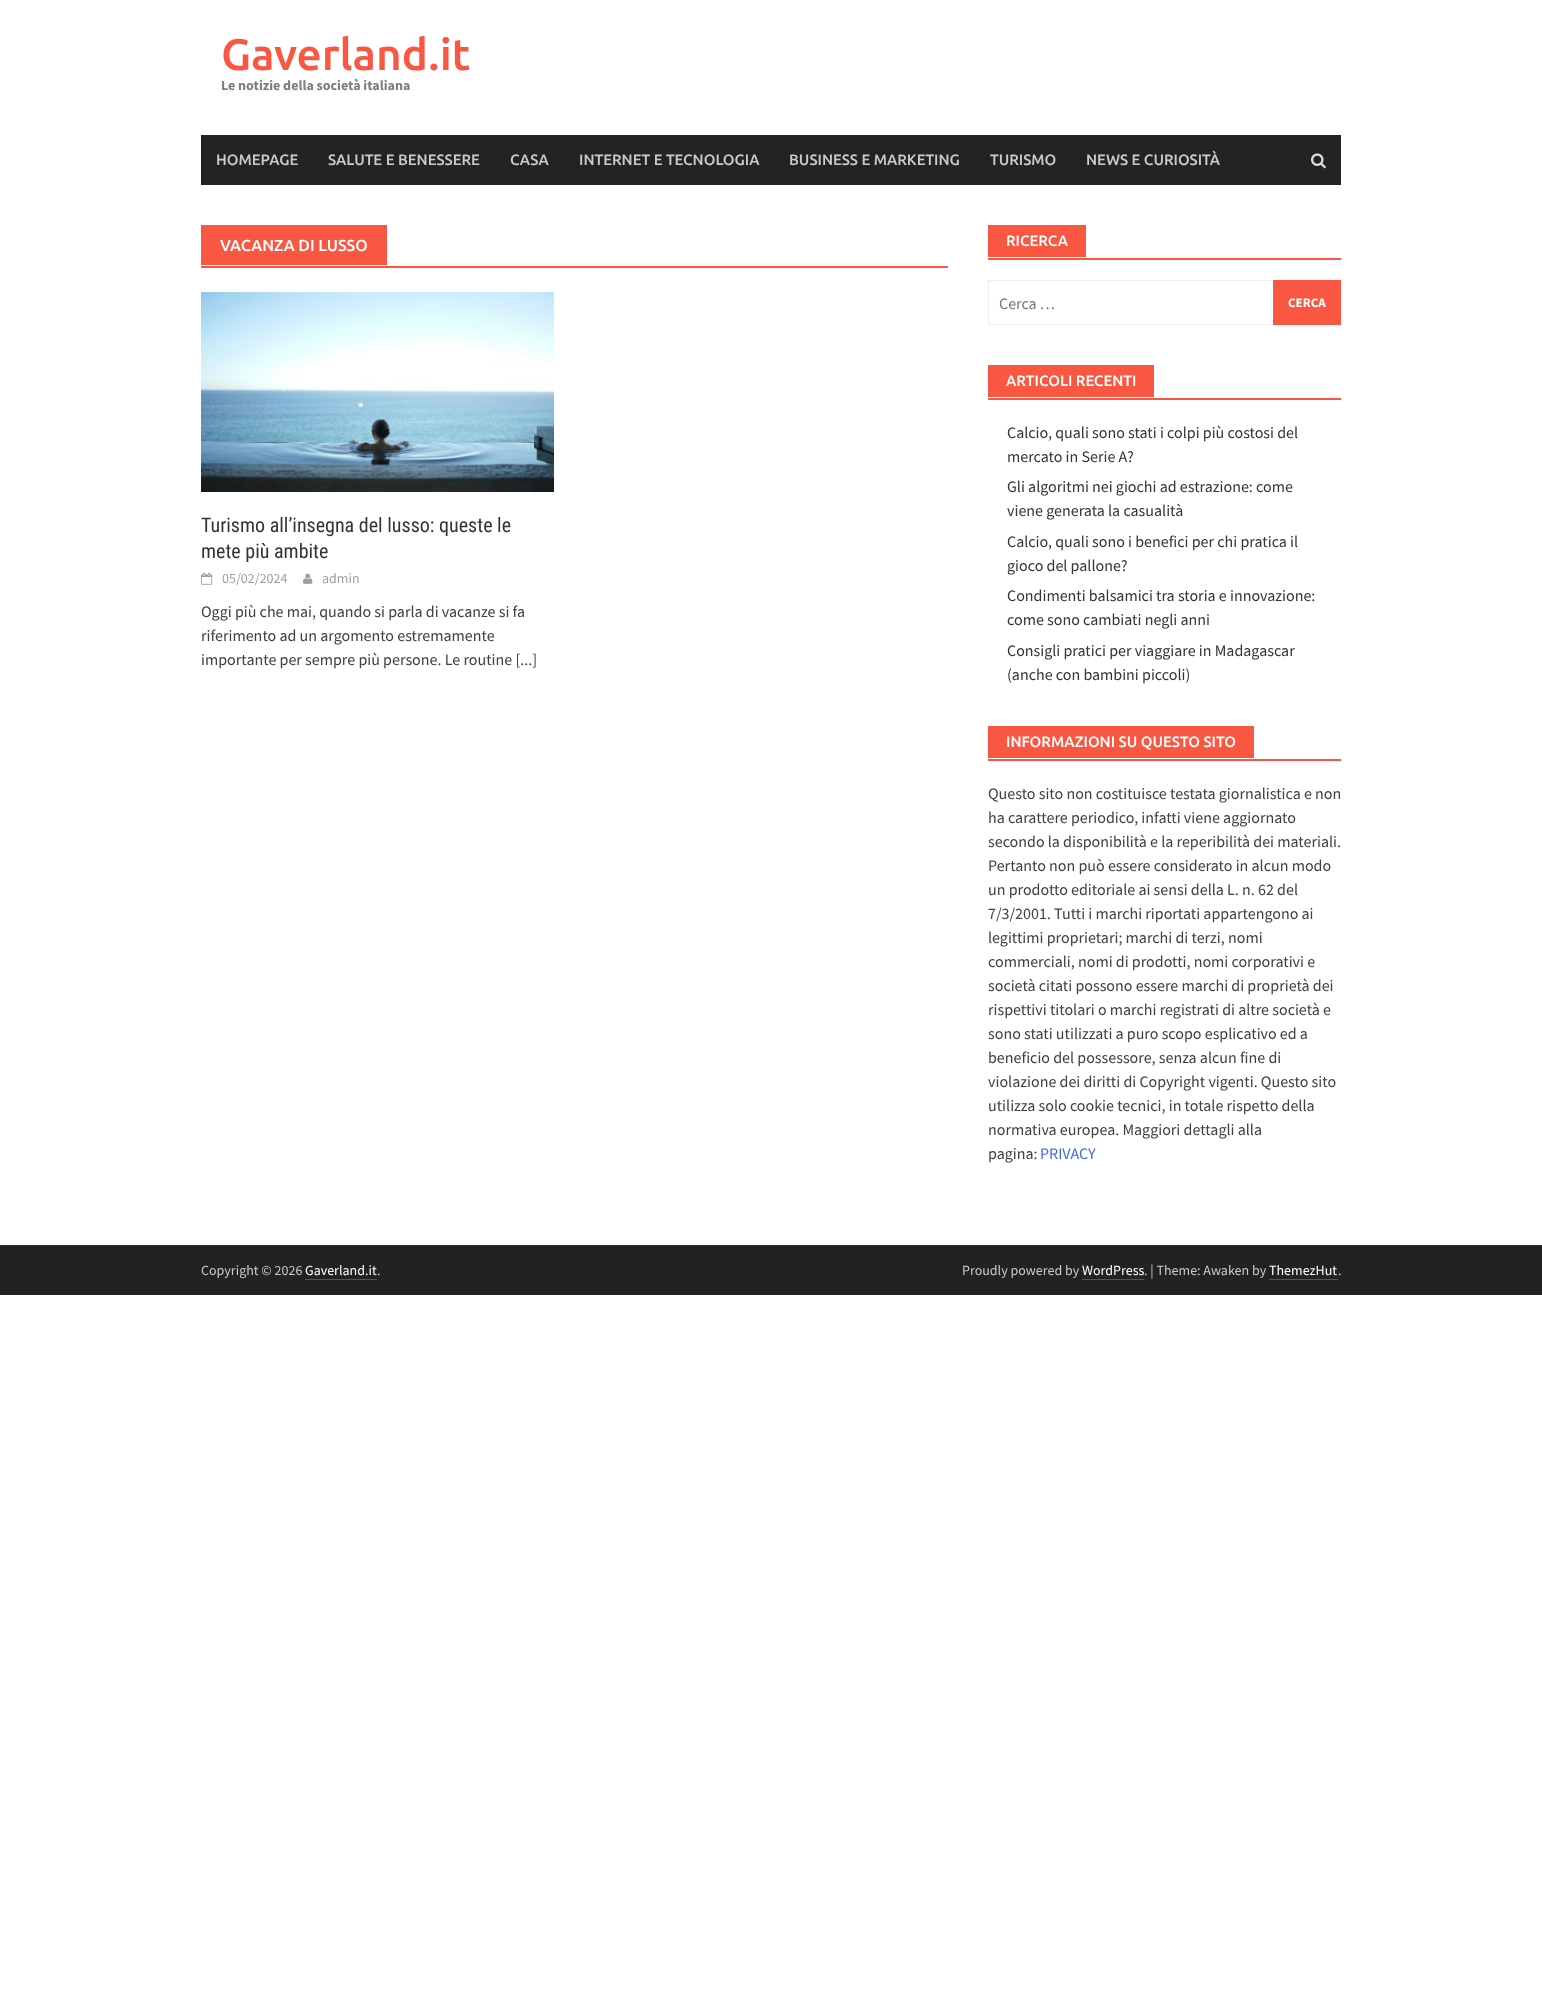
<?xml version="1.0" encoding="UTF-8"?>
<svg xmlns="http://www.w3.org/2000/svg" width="1542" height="2000">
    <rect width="100%" height="100%" fill="#FFFFFF"/>
    <text x="221" y="70" font-family="Ubuntu" font-size="44" font-weight="500" fill="#FA5742">Gaverland.it</text>
    <text x="221" y="90" font-family="Source Sans Pro" font-size="14" font-weight="700" fill="#7E7E7E">Le notizie della società italiana</text>
    <rect x="201" y="135" width="1140" height="50" fill="#232323"/>
    <text x="216" y="165" font-family="Ubuntu" font-size="15" font-weight="500" fill="#CACACA">HOMEPAGE</text>
    <text x="328" y="165" font-family="Ubuntu" font-size="15" font-weight="500" fill="#CACACA">SALUTE E BENESSERE</text>
    <text x="510" y="165" font-family="Ubuntu" font-size="15" font-weight="500" fill="#CACACA">CASA</text>
    <text x="579" y="165" font-family="Ubuntu" font-size="15" font-weight="500" fill="#CACACA">INTERNET E TECNOLOGIA</text>
    <text x="789" y="165" font-family="Ubuntu" font-size="15" font-weight="500" fill="#CACACA">BUSINESS E MARKETING</text>
    <text x="990" y="165" font-family="Ubuntu" font-size="15" font-weight="500" fill="#CACACA">TURISMO</text>
    <text x="1086" y="165" font-family="Ubuntu" font-size="15" font-weight="500" fill="#CACACA">NEWS E CURIOSITÀ</text>
    <image x="1311" y="153" width="15" height="16" href="img_01.png"/>
    <rect x="201" y="266" width="747" height="2" fill="#FA5742"/>
    <rect x="201" y="225" width="186" height="40" fill="#FA5742"/>
    <text x="220" y="251" font-family="Ubuntu" font-size="16" font-weight="500" fill="#FFFFFF">VACANZA DI LUSSO</text>
    <image x="201" y="292" width="353" height="200" href="img_02.png"/>
    <text font-family="Roboto Condensed" font-size="20" fill="#353434">
        <tspan x="201" y="532">Turismo all’insegna del lusso: queste le</tspan>
        <tspan x="201" y="558">mete più ambite</tspan>
    </text>
    <image x="201" y="572" width="12" height="13" href="img_03.png"/>
    <text x="222" y="583" font-family="Source Sans Pro" font-size="14" fill="#9F9F9F">05/02/2024</text>
    <image x="303" y="573" width="10" height="11" href="img_04.png"/>
    <text x="322" y="583" font-family="Source Sans Pro" font-size="14" fill="#9F9F9F">admin</text>
    <text font-family="Source Sans Pro" font-size="16" fill="#404040">
        <tspan x="201" y="617">Oggi più che mai, quando si parla di vacanze si fa</tspan>
        <tspan x="201" y="641">riferimento ad un argomento estremamente</tspan>
        <tspan x="201" y="665">importante per sempre più persone. Le routine [...]</tspan>
    </text>
    <rect x="988" y="258" width="353" height="2" fill="#FA5742"/>
    <rect x="988" y="225" width="98" height="32" fill="#FA5742"/>
    <text x="1006" y="246" font-family="Ubuntu" font-size="15" font-weight="500" fill="#FFFFFF">RICERCA</text>
    <rect x="988.5" y="280.5" width="352" height="44" fill="none" stroke="#EEEEEE"/>
    <text x="999" y="309" font-family="Source Sans Pro" font-size="16" fill="#757575">Cerca …</text>
    <rect x="1273" y="280" width="68" height="45" fill="#FA5742"/>
    <text x="1288" y="307" font-family="Source Sans Pro" font-size="13" font-weight="700" fill="#FFFFFF">CERCA</text>
    <rect x="988" y="398" width="353" height="2" fill="#FA5742"/>
    <rect x="988" y="365" width="166" height="32" fill="#FA5742"/>
    <text x="1006" y="386" font-family="Ubuntu" font-size="15" font-weight="500" fill="#FFFFFF">ARTICOLI RECENTI</text>
    <text font-family="Source Sans Pro" font-size="16" fill="#353434">
        <tspan x="1007" y="438">Calcio, quali sono stati i colpi più costosi del</tspan>
        <tspan x="1007" y="462">mercato in Serie A?</tspan>
        <tspan x="1007" y="492">Gli algoritmi nei giochi ad estrazione: come</tspan>
        <tspan x="1007" y="516">viene generata la casualità</tspan>
        <tspan x="1007" y="547">Calcio, quali sono i benefici per chi pratica il</tspan>
        <tspan x="1007" y="571">gioco del pallone?</tspan>
        <tspan x="1007" y="601">Condimenti balsamici tra storia e innovazione:</tspan>
        <tspan x="1007" y="625">come sono cambiati negli anni</tspan>
        <tspan x="1007" y="656">Consigli pratici per viaggiare in Madagascar</tspan>
        <tspan x="1007" y="680">(anche con bambini piccoli)</tspan>
    </text>
    <rect x="988" y="759" width="353" height="2" fill="#FA5742"/>
    <rect x="988" y="726" width="266" height="32" fill="#FA5742"/>
    <text x="1006" y="747" font-family="Ubuntu" font-size="15" font-weight="500" fill="#FFFFFF">INFORMAZIONI SU QUESTO SITO</text>
    <text font-family="Source Sans Pro" font-size="16" fill="#404040">
        <tspan x="988" y="799">Questo sito non costituisce testata giornalistica e non</tspan>
        <tspan x="988" y="823">ha carattere periodico, infatti viene aggiornato</tspan>
        <tspan x="988" y="847">secondo la disponibilità e la reperibilità dei materiali.</tspan>
        <tspan x="988" y="871">Pertanto non può essere considerato in alcun modo</tspan>
        <tspan x="988" y="895">un prodotto editoriale ai sensi della L. n. 62 del</tspan>
        <tspan x="988" y="919">7/3/2001. Tutti i marchi riportati appartengono ai</tspan>
        <tspan x="988" y="943">legittimi proprietari; marchi di terzi, nomi</tspan>
        <tspan x="988" y="967">commerciali, nomi di prodotti, nomi corporativi e</tspan>
        <tspan x="988" y="991">società citati possono essere marchi di proprietà dei</tspan>
        <tspan x="988" y="1015">rispettivi titolari o marchi registrati di altre società e</tspan>
        <tspan x="988" y="1039">sono stati utilizzati a puro scopo esplicativo ed a</tspan>
        <tspan x="988" y="1063">beneficio del possessore, senza alcun fine di</tspan>
        <tspan x="988" y="1087">violazione dei diritti di Copyright vigenti. Questo sito</tspan>
        <tspan x="988" y="1111">utilizza solo cookie tecnici, in totale rispetto della</tspan>
        <tspan x="988" y="1135">normativa europea. Maggiori dettagli alla</tspan>
        <tspan x="988" y="1159">pagina:</tspan>
    </text>
    <text x="1040" y="1159" font-family="Source Sans Pro" font-size="16" fill="#4169E1">PRIVACY</text>
    <rect x="0" y="1245" width="1542" height="1" fill="#323232"/>
    <rect x="0" y="1246" width="1542" height="49" fill="#222222"/>
    <text x="201" y="1275" font-family="Source Sans Pro" font-size="14" fill="#CACACA">Copyright © 2026</text>
    <text x="305" y="1275" font-family="Source Sans Pro" font-size="14" fill="#FFFFFF">Gaverland.it</text>
    <rect x="305" y="1279" width="72" height="1" fill="#555555"/>
    <text x="377" y="1275" font-family="Source Sans Pro" font-size="14" fill="#CACACA">.</text>
    <text x="962" y="1275" font-family="Source Sans Pro" font-size="14" fill="#CACACA">Proudly powered by</text>
    <text x="1082" y="1275" font-family="Source Sans Pro" font-size="14" fill="#FFFFFF">WordPress</text>
    <rect x="1082" y="1279" width="62" height="1" fill="#555555"/>
    <text x="1144" y="1275" font-family="Source Sans Pro" font-size="14" fill="#CACACA">. | Theme: Awaken by</text>
    <text x="1269" y="1275" font-family="Source Sans Pro" font-size="14" fill="#FFFFFF">ThemezHut</text>
    <rect x="1269" y="1279" width="69" height="1" fill="#555555"/>
    <text x="1338" y="1275" font-family="Source Sans Pro" font-size="14" fill="#CACACA">.</text>
</svg>
